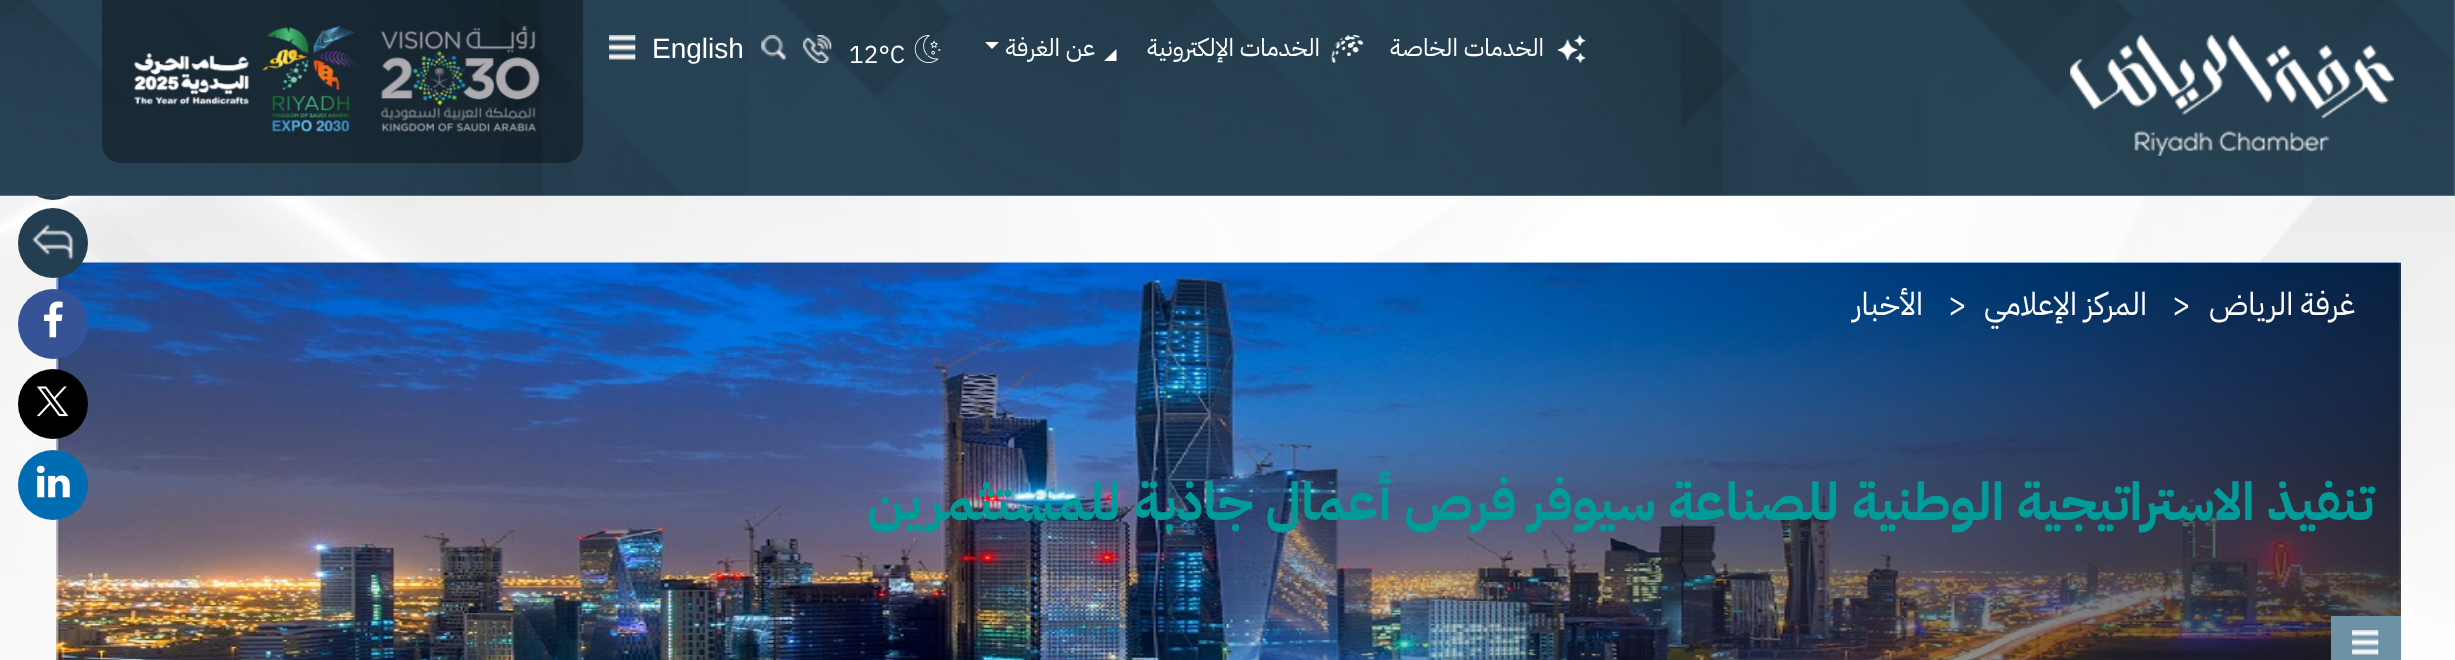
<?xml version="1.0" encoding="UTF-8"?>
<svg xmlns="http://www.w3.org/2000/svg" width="2455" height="660">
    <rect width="100%" height="100%" fill="#FFFFFF"/>
    <image x="0" y="0" width="2455" height="660" href="img_01.png"/>
    <circle cx="53" cy="165" r="35" fill="#233E51"/>
    <image x="0" y="0" width="2455" height="196" href="img_02.png"/>
    <image x="2070" y="35" width="324" height="121" href="img_03.png"/>
    <image x="1557" y="35" width="29" height="28" href="img_04.png"/>
    <text x="1544" y="56" font-family="IBM Plex Sans Arabic" font-size="24.5" direction="rtl" fill="#FFFFFF">الخدمات الخاصة</text>
    <image x="1331" y="35" width="33" height="28" href="img_05.png"/>
    <text x="1320" y="56" font-family="IBM Plex Sans Arabic" font-size="24.5" direction="rtl" fill="#FFFFFF">الخدمات الإلكترونية</text>
    <text x="1095" y="56" font-family="IBM Plex Sans Arabic" font-size="24.5" direction="rtl" fill="#FFFFFF">عن الغرفة</text>
    <path d="M 985 42 H 999 L 992 49 Z" fill="#FFFFFF"/>
    <path d="M 1116.5 61 H 1104 L 1116.5 49 Z" fill="#FFFFFF"/>
    <image x="914" y="35" width="27" height="28" href="img_06.png"/>
    <text x="849" y="63" font-family="IBM Plex Sans Arabic" font-size="24.5" fill="#FFFFFF">12°C</text>
    <image x="803" y="35" width="29" height="28" href="img_07.png"/>
    <image x="761" y="35" width="25" height="25" href="img_08.png"/>
    <text x="652" y="58" font-family="Liberation Sans" font-size="28" fill="#FFFFFF">English</text>
    <image x="609" y="35" width="27" height="25" href="img_09.png"/>
    <path d="M 102 0 H 583 V 144 C 583 154.5 574.5 163 564 163 H 121 C 110.5 163 102 154.5 102 144 Z" fill="#000000" fill-opacity="0.34"/>
    <image x="380" y="26" width="160" height="106" href="img_10.png"/>
    <image x="262" y="26" width="97" height="106" href="img_11.png"/>
    <image x="133" y="53" width="117" height="52" href="img_12.png"/>
    <image x="56" y="262" width="2345" height="398" href="img_13.png"/>
    <circle cx="53" cy="243" r="35" fill="#233E51"/>
    <image x="32" y="224" width="43" height="36" href="img_14.png"/>
    <text x="2355" y="315" font-family="IBM Plex Sans Arabic" font-size="31.5" direction="rtl" fill="#FFFFFF">غرفة الرياض</text>
    <text x="2172" y="315" font-family="IBM Plex Sans Arabic" font-size="31.5" fill="#FFFFFF">&gt;</text>
    <text x="2147" y="315" font-family="IBM Plex Sans Arabic" font-size="31.5" direction="rtl" fill="#FFFFFF">المركز الإعلامي</text>
    <text x="1948" y="315" font-family="IBM Plex Sans Arabic" font-size="31.5" fill="#FFFFFF">&gt;</text>
    <text x="1923" y="315" font-family="IBM Plex Sans Arabic" font-size="31.5" direction="rtl" fill="#FFFFFF">الأخبار</text>
    <text x="2374" y="520" font-family="IBM Plex Sans Arabic" font-size="52.5" font-weight="700" direction="rtl" fill="#009C9A">تنفيذ الاستراتيجية الوطنية للصناعة سيوفر فرص أعمال جاذبة للمستثمرين</text>
    <rect x="2331" y="616" width="70" height="44" fill="#6D92A6"/>
    <image x="2352" y="630" width="27" height="25" href="img_15.png"/>
    <circle cx="53" cy="324" r="35" fill="#365397"/>
    <image x="44" y="301" width="19" height="37" href="img_16.png"/>
    <circle cx="53" cy="404" r="35" fill="#000000"/>
    <image x="36" y="386" width="33" height="31" href="img_17.png"/>
    <circle cx="53" cy="485" r="35" fill="#006DB3"/>
    <image x="36" y="465" width="34" height="33" href="img_18.png"/>
</svg>
